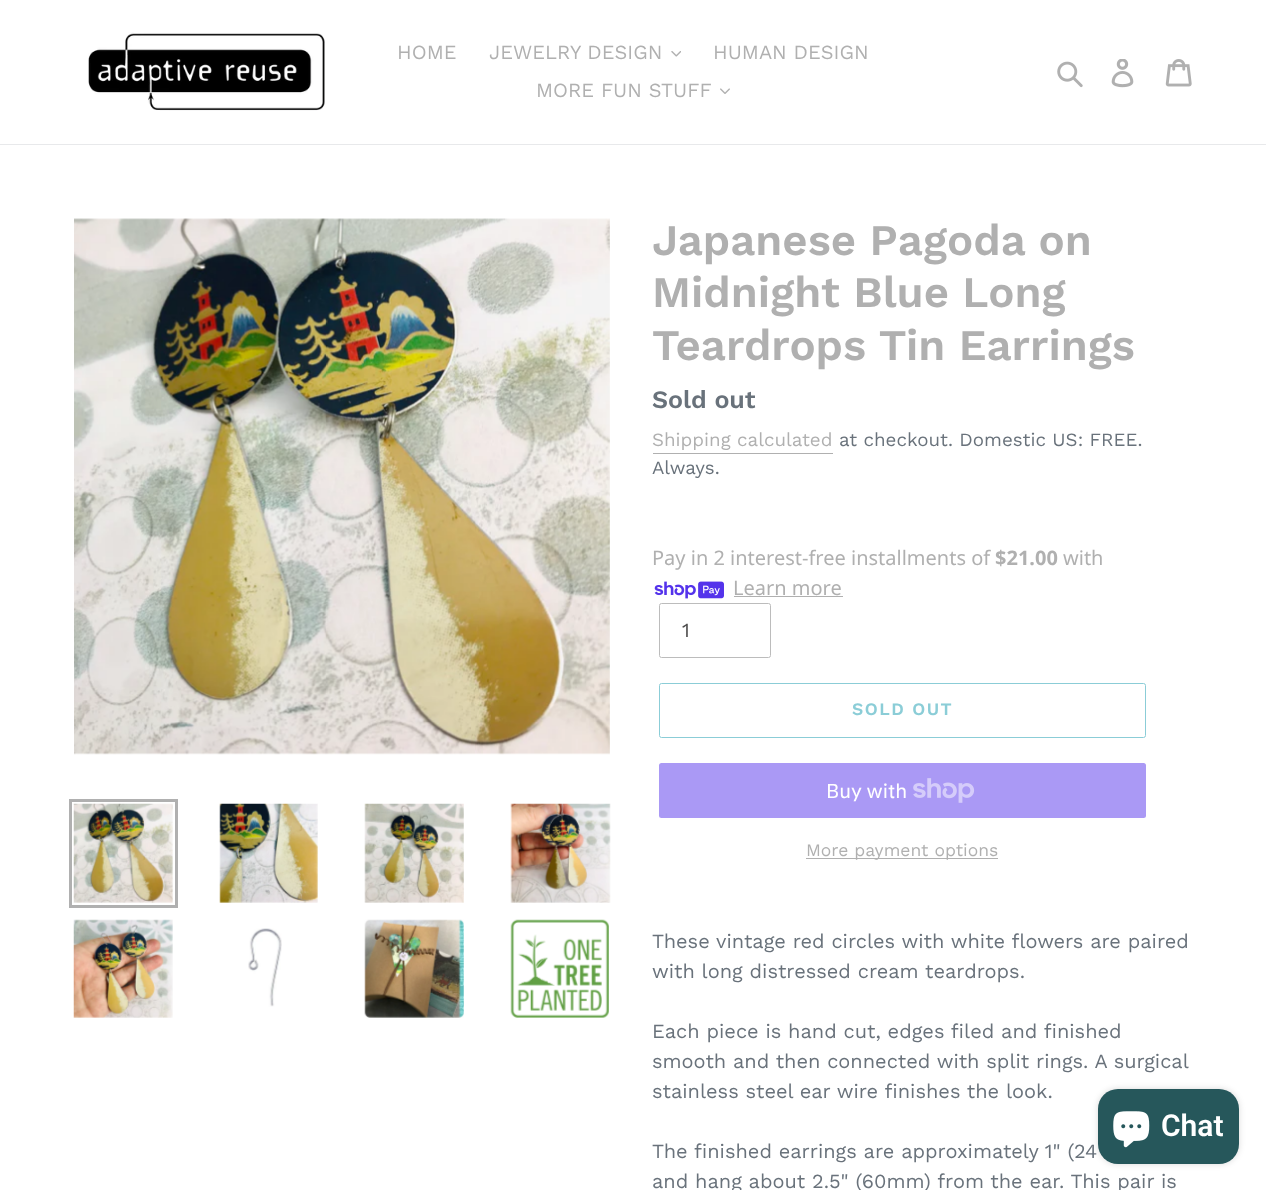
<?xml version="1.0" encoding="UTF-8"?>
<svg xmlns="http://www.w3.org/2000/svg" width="1266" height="1190">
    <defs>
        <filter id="blur1" x="-50%" y="-200%" width="200%" height="500%"><feGaussianBlur stdDeviation="3"/></filter>
    </defs>
    <rect width="100%" height="100%" fill="#FFFFFF"/>
    <rect x="0" y="144" width="1266" height="1" fill="#E8E9EB"/>
    <image x="88" y="32" width="237" height="79" href="img_01.png"/>
    <text x="397" y="59" font-family="Work Sans" font-size="20" fill="#B0B0B0">HOME</text>
    <text x="489" y="59" font-family="Work Sans" font-size="20" fill="#B0B0B0">JEWELRY DESIGN</text>
    <image x="671" y="51" width="10" height="6" href="img_02.png"/>
    <text x="713" y="59" font-family="Work Sans" font-size="20" fill="#B0B0B0">HUMAN DESIGN</text>
    <text x="536" y="97" font-family="Work Sans" font-size="20" fill="#B0B0B0">MORE FUN STUFF</text>
    <image x="720" y="88" width="10" height="6" href="img_03.png"/>
    <image x="1057" y="61" width="26" height="27" href="img_04.png"/>
    <image x="1111" y="59" width="23" height="29" href="img_05.png"/>
    <image x="1165" y="59" width="27" height="28" href="img_06.png"/>
    <image x="74" y="218" width="536" height="537" href="img_07.png"/>
    <rect x="70.5" y="800.5" width="106" height="106" fill="none" stroke="#B0B0B0" stroke-width="3"/>
    <image x="73" y="803" width="100" height="100" href="img_08.png"/>
    <image x="219" y="803" width="99" height="100" href="img_09.png"/>
    <image x="364" y="803" width="100" height="100" href="img_10.png"/>
    <image x="510" y="803" width="101" height="100" href="img_11.png"/>
    <image x="73" y="919" width="100" height="99" href="img_12.png"/>
    <image x="248" y="928" width="34" height="79" href="img_13.png"/>
    <image x="364" y="919" width="100" height="99" href="img_14.png"/>
    <image x="510" y="919" width="99" height="99" href="img_15.png"/>
    <text font-family="Work Sans" font-size="43.75" font-weight="600" fill="#B0B0B0">
        <tspan x="652" y="255">Japanese Pagoda on</tspan>
        <tspan x="652" y="307">Midnight Blue Long</tspan>
        <tspan x="652" y="360">Teardrops Tin Earrings</tspan>
    </text>
    <text x="652" y="408" font-family="Work Sans" font-size="25" font-weight="600" fill="#69727B">Sold out</text>
    <text x="652" y="446" font-family="Work Sans" font-size="18.75" fill="#B0B0B0">Shipping calculated</text>
    <rect x="653" y="453" width="180" height="1" fill="#B0B0B0"/>
    <text x="839" y="446" font-family="Work Sans" font-size="18.75" fill="#69727B">at checkout. Domestic US: FREE.</text>
    <text x="652" y="474" font-family="Work Sans" font-size="18.75" fill="#69727B">Always.</text>
    <text x="652" y="565" font-family="Noto Sans" font-size="20" fill="#B0B0B0">Pay in 2 interest-free installments of</text>
    <text x="995" y="565" font-family="Noto Sans" font-size="20" font-weight="700" fill="#B0B0B0">$21.00</text>
    <text x="1063" y="565" font-family="Noto Sans" font-size="20" fill="#B0B0B0">with</text>
    <image x="654" y="581" width="70" height="18" href="img_16.png"/>
    <text x="733" y="595" font-family="Noto Sans" font-size="20" fill="#B0B0B0">Learn more</text>
    <rect x="734" y="596" width="109" height="1" fill="#B0B0B0"/>
    <rect x="659.5" y="603.5" width="111" height="54" rx="2" fill="none" stroke="#BCBCBC"/>
    <text x="682" y="637" font-family="Work Sans" font-size="20" fill="#4E4D4D">1</text>
    <rect x="659.5" y="683.5" width="486" height="54" rx="2" fill="none" stroke="#8BCDD7"/>
    <text x="852" y="715" font-family="Work Sans" font-size="17.5" font-weight="600" letter-spacing="1.5" fill="#8BCDD7">SOLD OUT</text>
    <rect x="659" y="763" width="487" height="55" rx="2.5" fill="#AA99F5"/>
    <text x="826" y="798" font-family="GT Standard" font-size="20" fill="#FFFFFF">Buy with</text>
    <image x="913" y="778" width="62" height="25" href="img_17.png"/>
    <rect x="806" y="858" width="192" height="1" fill="#B0B0B0"/>
    <text x="806" y="856" font-family="Work Sans" font-size="17.5" fill="#B0B0B0">More payment options</text>
    <text font-family="Work Sans" font-size="20" fill="#69727B">
        <tspan x="652" y="948">These vintage red circles with white flowers are paired</tspan>
        <tspan x="652" y="978">with long distressed cream teardrops.</tspan>
    </text>
    <text font-family="Work Sans" font-size="20" fill="#69727B">
        <tspan x="652" y="1038">Each piece is hand cut, edges filed and finished</tspan>
        <tspan x="652" y="1068">smooth and then connected with split rings. A surgical</tspan>
        <tspan x="652" y="1098">stainless steel ear wire finishes the look.</tspan>
    </text>
    <text font-family="Work Sans" font-size="20" fill="#69727B">
        <tspan x="652" y="1158">The finished earrings are approximately 1" (24</tspan>
        <tspan x="652" y="1188">and hang about 2.5" (60mm) from the ear. This pair is</tspan>
    </text>
    <rect x="1098" y="1089" width="141" height="75" rx="20" fill="#000000" fill-opacity="0.15" filter="url(#blur1)"/>
    <rect x="1098" y="1089" width="141" height="75" rx="20" fill="#26575B"/>
    <image x="1113" y="1111" width="37" height="37" href="img_18.png"/>
    <text x="1161" y="1136" font-family="Roboto" font-size="30" font-weight="600" fill="#FFFFFF">Chat</text>
</svg>
